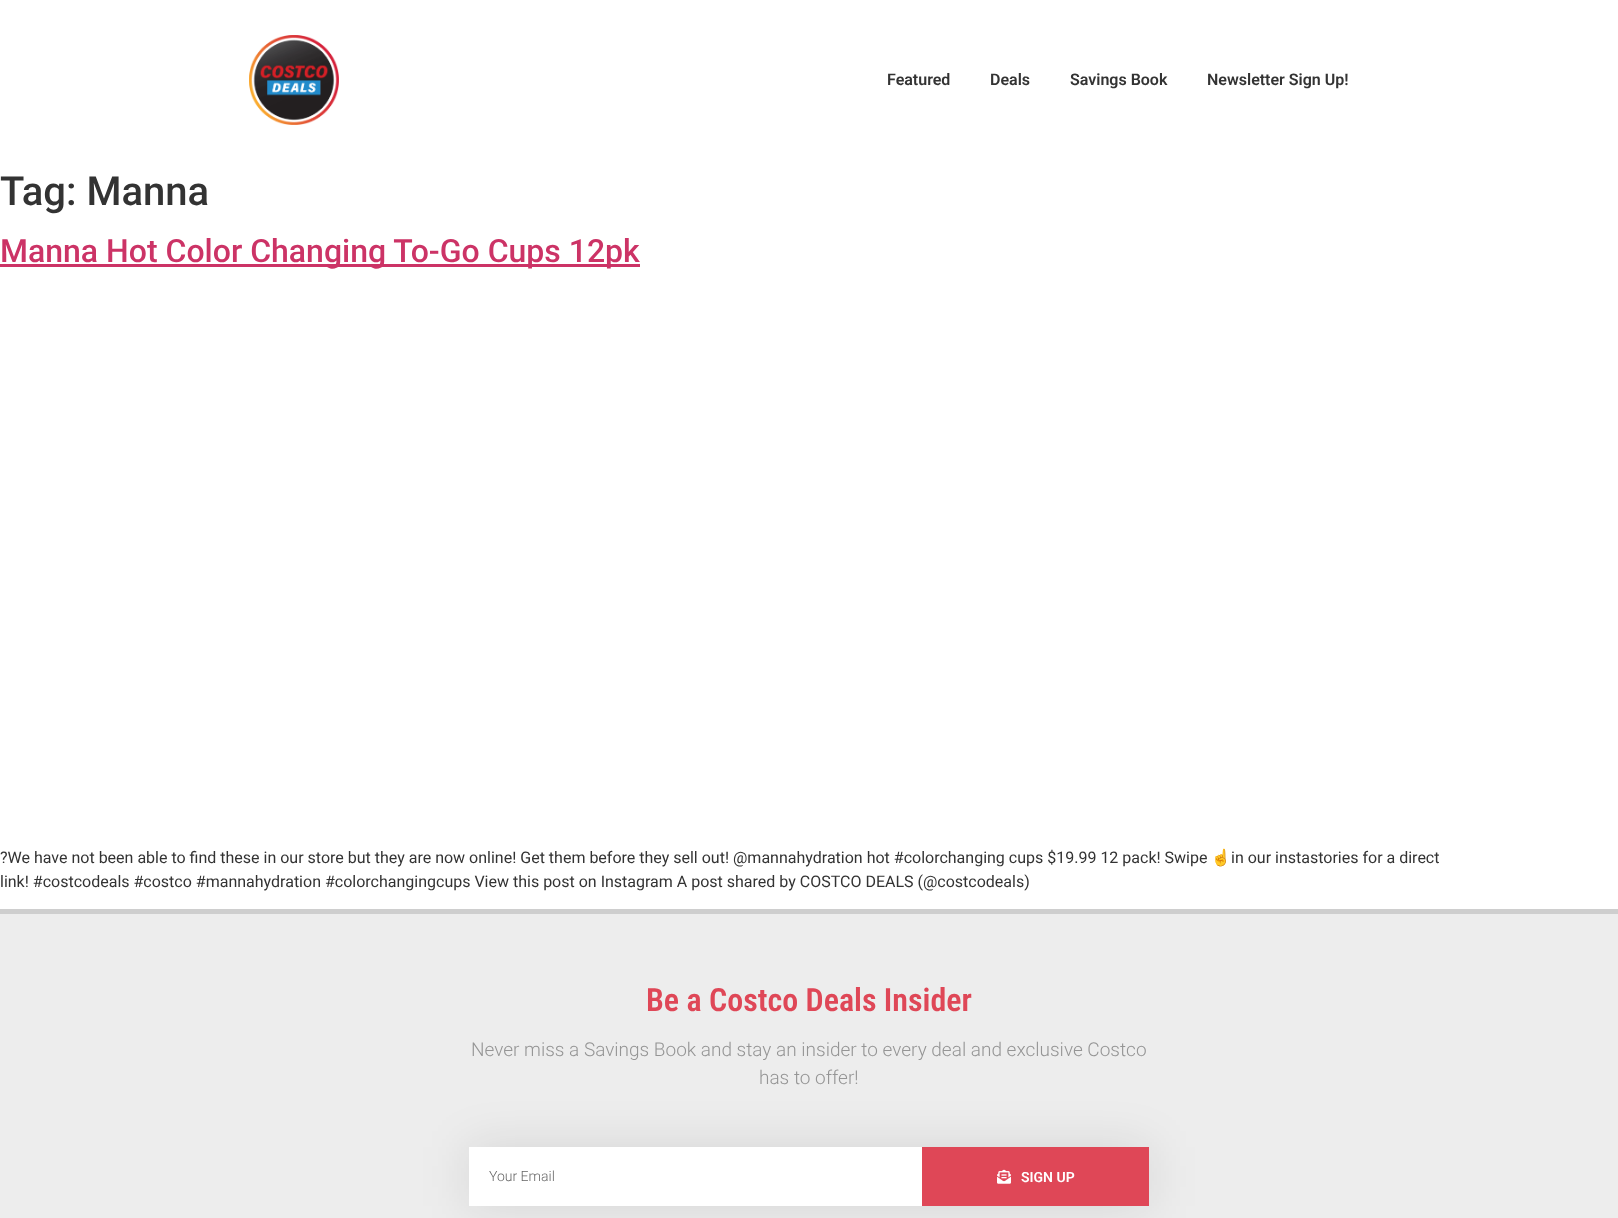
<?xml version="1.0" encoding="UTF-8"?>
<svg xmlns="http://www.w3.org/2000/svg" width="1618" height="1218">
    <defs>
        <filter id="blur1" x="-50%" y="-200%" width="200%" height="500%"><feGaussianBlur stdDeviation="24"/></filter>
    </defs>
    <rect width="100%" height="100%" fill="#FFFFFF"/>
    <image x="249" y="35" width="90" height="90" href="img_01.png"/>
    <text x="887" y="85" font-family="Roboto" font-size="16" font-weight="600" fill="#333333">Featured</text>
    <text x="990" y="85" font-family="Roboto" font-size="16" font-weight="600" fill="#333333">Deals</text>
    <text x="1070" y="85" font-family="Roboto" font-size="16" font-weight="600" fill="#333333">Savings Book</text>
    <text x="1207" y="85" font-family="Roboto" font-size="16" font-weight="600" fill="#333333">Newsletter Sign Up!</text>
    <text x="0" y="205" font-family="Roboto" font-size="40" font-weight="500" fill="#333333">Tag: Manna</text>
    <rect x="0" y="264" width="640" height="3" fill="#CC3366"/>
    <text x="0" y="262" font-family="Roboto" font-size="32" font-weight="500" fill="#CC3366">Manna Hot Color Changing To-Go Cups 12pk</text>
    <text x="0" y="863" font-family="Roboto" font-size="16" fill="#333333">?We have not been able to find these in our store but they are now online! Get them before they sell out! @mannahydration hot #colorchanging cups $19.99 12 pack! Swipe</text>
    <text x="1211" y="863" font-family="Noto Color Emoji" font-size="16" fill="#333333">☝️</text>
    <text x="1231" y="863" font-family="Roboto" font-size="16" fill="#333333">in our instastories for a direct</text>
    <text x="0" y="887" font-family="Roboto" font-size="16" fill="#333333">link! #costcodeals #costco #mannahydration #colorchangingcups View this post on Instagram A post shared by COSTCO DEALS (@costcodeals)</text>
    <rect x="0" y="914" width="1618" height="304" fill="#EDEDED"/>
    <rect x="0" y="909" width="1618" height="5" fill="#CECECE"/>
    <text x="646" y="1011" font-family="Roboto Condensed" font-size="32" font-weight="600" fill="#DF4757">Be a Costco Deals Insider</text>
    <text x="471" y="1056" font-family="Roboto" font-size="19" font-weight="300" fill="#959595">Never miss a Savings Book and stay an insider to every deal and exclusive Costco</text>
    <text x="759" y="1084" font-family="Roboto" font-size="19" font-weight="300" fill="#959595">has to offer!</text>
    <rect x="469" y="1147" width="680" height="59" fill="#000000" fill-opacity="0.11" filter="url(#blur1)"/>
    <rect x="469" y="1147" width="453" height="59" fill="#FFFFFF"/>
    <text x="489" y="1181" font-family="Roboto" font-size="14" font-weight="300" fill="#666666">Your Email</text>
    <rect x="922" y="1147" width="227" height="59" fill="#DF4757"/>
    <image x="997" y="1169" width="14" height="15" href="img_02.png"/>
    <text x="1021" y="1182" font-family="Roboto" font-size="14" font-weight="600" fill="#FFFFFF">SIGN UP</text>
</svg>
